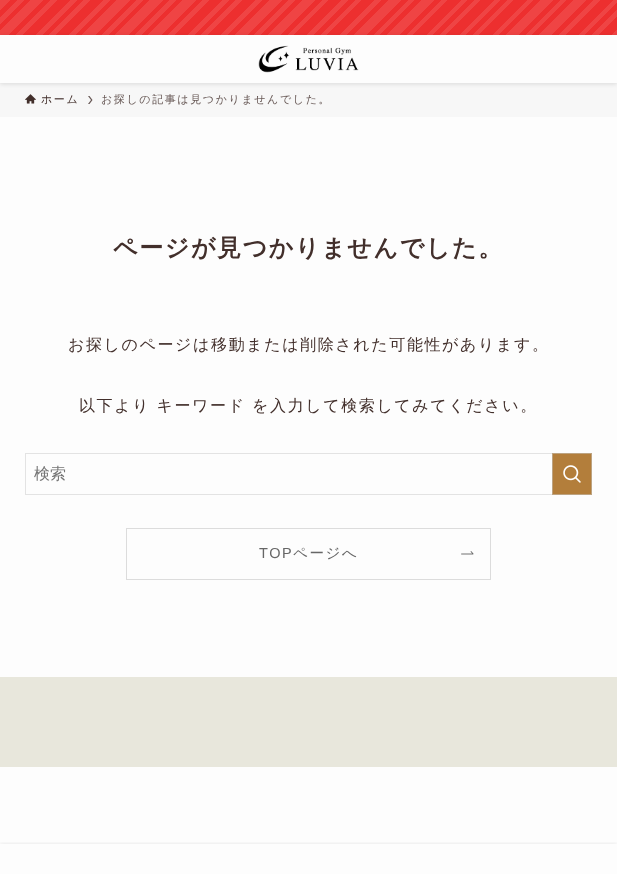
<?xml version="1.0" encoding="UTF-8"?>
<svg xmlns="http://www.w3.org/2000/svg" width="617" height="874">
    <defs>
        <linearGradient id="g1" gradientUnits="userSpaceOnUse" x1="472" y1="181" x2="141" y2="-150"><stop offset="0" stop-color="#EF4444"/><stop offset="0.01" stop-color="#EF4444"/><stop offset="0.01" stop-color="#ED2F2F"/><stop offset="0.03" stop-color="#ED2F2F"/><stop offset="0.03" stop-color="#EF4444"/><stop offset="0.04" stop-color="#EF4444"/><stop offset="0.04" stop-color="#ED2F2F"/><stop offset="0.05" stop-color="#ED2F2F"/><stop offset="0.05" stop-color="#EF4444"/><stop offset="0.06" stop-color="#EF4444"/><stop offset="0.06" stop-color="#ED2F2F"/><stop offset="0.08" stop-color="#ED2F2F"/><stop offset="0.08" stop-color="#EF4444"/><stop offset="0.09" stop-color="#EF4444"/><stop offset="0.09" stop-color="#ED2F2F"/><stop offset="0.1" stop-color="#ED2F2F"/><stop offset="0.1" stop-color="#EF4444"/><stop offset="0.12" stop-color="#EF4444"/><stop offset="0.12" stop-color="#ED2F2F"/><stop offset="0.13" stop-color="#ED2F2F"/><stop offset="0.13" stop-color="#EF4444"/><stop offset="0.14" stop-color="#EF4444"/><stop offset="0.14" stop-color="#ED2F2F"/><stop offset="0.15" stop-color="#ED2F2F"/><stop offset="0.15" stop-color="#EF4444"/><stop offset="0.17" stop-color="#EF4444"/><stop offset="0.17" stop-color="#ED2F2F"/><stop offset="0.18" stop-color="#ED2F2F"/><stop offset="0.18" stop-color="#EF4444"/><stop offset="0.19" stop-color="#EF4444"/><stop offset="0.19" stop-color="#ED2F2F"/><stop offset="0.21" stop-color="#ED2F2F"/><stop offset="0.21" stop-color="#EF4444"/><stop offset="0.22" stop-color="#EF4444"/><stop offset="0.22" stop-color="#ED2F2F"/><stop offset="0.23" stop-color="#ED2F2F"/><stop offset="0.23" stop-color="#EF4444"/><stop offset="0.24" stop-color="#EF4444"/><stop offset="0.24" stop-color="#ED2F2F"/><stop offset="0.26" stop-color="#ED2F2F"/><stop offset="0.26" stop-color="#EF4444"/><stop offset="0.27" stop-color="#EF4444"/><stop offset="0.27" stop-color="#ED2F2F"/><stop offset="0.28" stop-color="#ED2F2F"/><stop offset="0.28" stop-color="#EF4444"/><stop offset="0.29" stop-color="#EF4444"/><stop offset="0.29" stop-color="#ED2F2F"/><stop offset="0.31" stop-color="#ED2F2F"/><stop offset="0.31" stop-color="#EF4444"/><stop offset="0.32" stop-color="#EF4444"/><stop offset="0.32" stop-color="#ED2F2F"/><stop offset="0.33" stop-color="#ED2F2F"/><stop offset="0.33" stop-color="#EF4444"/><stop offset="0.35" stop-color="#EF4444"/><stop offset="0.35" stop-color="#ED2F2F"/><stop offset="0.36" stop-color="#ED2F2F"/><stop offset="0.36" stop-color="#EF4444"/><stop offset="0.37" stop-color="#EF4444"/><stop offset="0.37" stop-color="#ED2F2F"/><stop offset="0.38" stop-color="#ED2F2F"/><stop offset="0.38" stop-color="#EF4444"/><stop offset="0.4" stop-color="#EF4444"/><stop offset="0.4" stop-color="#ED2F2F"/><stop offset="0.41" stop-color="#ED2F2F"/><stop offset="0.41" stop-color="#EF4444"/><stop offset="0.42" stop-color="#EF4444"/><stop offset="0.42" stop-color="#ED2F2F"/><stop offset="0.44" stop-color="#ED2F2F"/><stop offset="0.44" stop-color="#EF4444"/><stop offset="0.45" stop-color="#EF4444"/><stop offset="0.45" stop-color="#ED2F2F"/><stop offset="0.46" stop-color="#ED2F2F"/><stop offset="0.46" stop-color="#EF4444"/><stop offset="0.47" stop-color="#EF4444"/><stop offset="0.47" stop-color="#ED2F2F"/><stop offset="0.49" stop-color="#ED2F2F"/><stop offset="0.49" stop-color="#EF4444"/><stop offset="0.5" stop-color="#EF4444"/><stop offset="0.5" stop-color="#ED2F2F"/><stop offset="0.51" stop-color="#ED2F2F"/><stop offset="0.51" stop-color="#EF4444"/><stop offset="0.53" stop-color="#EF4444"/><stop offset="0.53" stop-color="#ED2F2F"/><stop offset="0.54" stop-color="#ED2F2F"/><stop offset="0.54" stop-color="#EF4444"/><stop offset="0.55" stop-color="#EF4444"/><stop offset="0.55" stop-color="#ED2F2F"/><stop offset="0.56" stop-color="#ED2F2F"/><stop offset="0.56" stop-color="#EF4444"/><stop offset="0.58" stop-color="#EF4444"/><stop offset="0.58" stop-color="#ED2F2F"/><stop offset="0.59" stop-color="#ED2F2F"/><stop offset="0.59" stop-color="#EF4444"/><stop offset="0.6" stop-color="#EF4444"/><stop offset="0.6" stop-color="#ED2F2F"/><stop offset="0.62" stop-color="#ED2F2F"/><stop offset="0.62" stop-color="#EF4444"/><stop offset="0.63" stop-color="#EF4444"/><stop offset="0.63" stop-color="#ED2F2F"/><stop offset="0.64" stop-color="#ED2F2F"/><stop offset="0.64" stop-color="#EF4444"/><stop offset="0.65" stop-color="#EF4444"/><stop offset="0.65" stop-color="#ED2F2F"/><stop offset="0.67" stop-color="#ED2F2F"/><stop offset="0.67" stop-color="#EF4444"/><stop offset="0.68" stop-color="#EF4444"/><stop offset="0.68" stop-color="#ED2F2F"/><stop offset="0.69" stop-color="#ED2F2F"/><stop offset="0.69" stop-color="#EF4444"/><stop offset="0.71" stop-color="#EF4444"/><stop offset="0.71" stop-color="#ED2F2F"/><stop offset="0.72" stop-color="#ED2F2F"/><stop offset="0.72" stop-color="#EF4444"/><stop offset="0.73" stop-color="#EF4444"/><stop offset="0.73" stop-color="#ED2F2F"/><stop offset="0.74" stop-color="#ED2F2F"/><stop offset="0.74" stop-color="#EF4444"/><stop offset="0.76" stop-color="#EF4444"/><stop offset="0.76" stop-color="#ED2F2F"/><stop offset="0.77" stop-color="#ED2F2F"/><stop offset="0.77" stop-color="#EF4444"/><stop offset="0.78" stop-color="#EF4444"/><stop offset="0.78" stop-color="#ED2F2F"/><stop offset="0.79" stop-color="#ED2F2F"/><stop offset="0.79" stop-color="#EF4444"/><stop offset="0.81" stop-color="#EF4444"/><stop offset="0.81" stop-color="#ED2F2F"/><stop offset="0.82" stop-color="#ED2F2F"/><stop offset="0.82" stop-color="#EF4444"/><stop offset="0.83" stop-color="#EF4444"/><stop offset="0.83" stop-color="#ED2F2F"/><stop offset="0.85" stop-color="#ED2F2F"/><stop offset="0.85" stop-color="#EF4444"/><stop offset="0.86" stop-color="#EF4444"/><stop offset="0.86" stop-color="#ED2F2F"/><stop offset="0.87" stop-color="#ED2F2F"/><stop offset="0.87" stop-color="#EF4444"/><stop offset="0.88" stop-color="#EF4444"/><stop offset="0.88" stop-color="#ED2F2F"/><stop offset="0.9" stop-color="#ED2F2F"/><stop offset="0.9" stop-color="#EF4444"/><stop offset="0.91" stop-color="#EF4444"/><stop offset="0.91" stop-color="#ED2F2F"/><stop offset="0.92" stop-color="#ED2F2F"/><stop offset="0.92" stop-color="#EF4444"/><stop offset="0.94" stop-color="#EF4444"/><stop offset="0.94" stop-color="#ED2F2F"/><stop offset="0.95" stop-color="#ED2F2F"/><stop offset="0.95" stop-color="#EF4444"/><stop offset="0.96" stop-color="#EF4444"/><stop offset="0.96" stop-color="#ED2F2F"/><stop offset="0.97" stop-color="#ED2F2F"/><stop offset="0.97" stop-color="#EF4444"/><stop offset="0.99" stop-color="#EF4444"/><stop offset="0.99" stop-color="#ED2F2F"/><stop offset="1" stop-color="#ED2F2F"/></linearGradient>
        <clipPath id="clip1"><path d="M 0 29 H 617 V 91 H 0 Z M 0 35 H 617 V 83 H 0 Z" clip-rule="evenodd"/></clipPath>
        <filter id="blur1" x="-50%" y="-200%" width="200%" height="500%"><feGaussianBlur stdDeviation="2"/></filter>
        <clipPath id="clip2"><rect x="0" y="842" width="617" height="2"/></clipPath>
    </defs>
    <rect width="100%" height="100%" fill="#FDFDFD"/>
    <rect x="0" y="0" width="617" height="35" fill="url(#g1)"/>
    <rect x="0" y="83" width="617" height="34" fill="#F7F7F7"/>
    <g clip-path="url(#clip1)">
        <rect x="0" y="36" width="617" height="48" fill="#000000" fill-opacity="0.12" filter="url(#blur1)"/>
    </g>
    <image x="258" y="45" width="101" height="28" href="img_01.png"/>
    <image x="25" y="94" width="11" height="10" href="img_02.png"/>
    <text x="41" y="103" font-family="WenQuanYi Zen Hei" font-size="11" font-weight="500" letter-spacing="1.6" fill="#422F2B">ホーム</text>
    <path d="M 89.5 96 H 88 L 91 100 L 88 104 H 89.5 L 92.5 100 Z" fill="#665754"/>
    <text x="101" y="103" font-family="WenQuanYi Zen Hei" font-size="11" font-weight="500" letter-spacing="1.6" fill="#665754">お探しの記事は見つかりませんでした。</text>
    <text x="113" y="256" font-family="WenQuanYi Zen Hei" font-size="24" font-weight="700" letter-spacing="1.6" fill="#422F2B">ページが見つかりませんでした。</text>
    <text x="68" y="350" font-family="WenQuanYi Zen Hei" font-size="16" font-weight="500" letter-spacing="1.6" fill="#422F2B">お探しのページは移動または削除された可能性があります。</text>
    <text x="79" y="411" font-family="WenQuanYi Zen Hei" font-size="16" font-weight="500" letter-spacing="1.6" fill="#422F2B">以下より キーワード を入力して検索してみてください。</text>
    <rect x="25.5" y="453.5" width="566" height="41" fill="none" stroke="#E3E3E3"/>
    <text x="34" y="479" font-family="WenQuanYi Zen Hei" font-size="16" font-weight="500" fill="#757575">検索</text>
    <rect x="552.5" y="453.5" width="39" height="41" fill="#B37E3B" stroke="#BDA381"/>
    <image x="563" y="465" width="18" height="18" href="img_03.png"/>
    <rect x="126.5" y="528.5" width="364" height="51" fill="none" stroke="#DCDCDC"/>
    <text x="259" y="558" font-family="Liberation Sans" font-size="14.5" letter-spacing="1.6" fill="#666666">TOP</text>
    <text x="293" y="558" font-family="WenQuanYi Zen Hei" font-size="14.5" font-weight="500" letter-spacing="1.6" fill="#666666">ページへ</text>
    <image x="461" y="551" width="13" height="4" href="img_04.png"/>
    <rect x="0" y="677" width="617" height="90" fill="#E8E7DC"/>
    <g clip-path="url(#clip2)">
        <rect x="0" y="844" width="617" height="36" fill="#000000" fill-opacity="0.1" filter="url(#blur1)"/>
    </g>
</svg>
